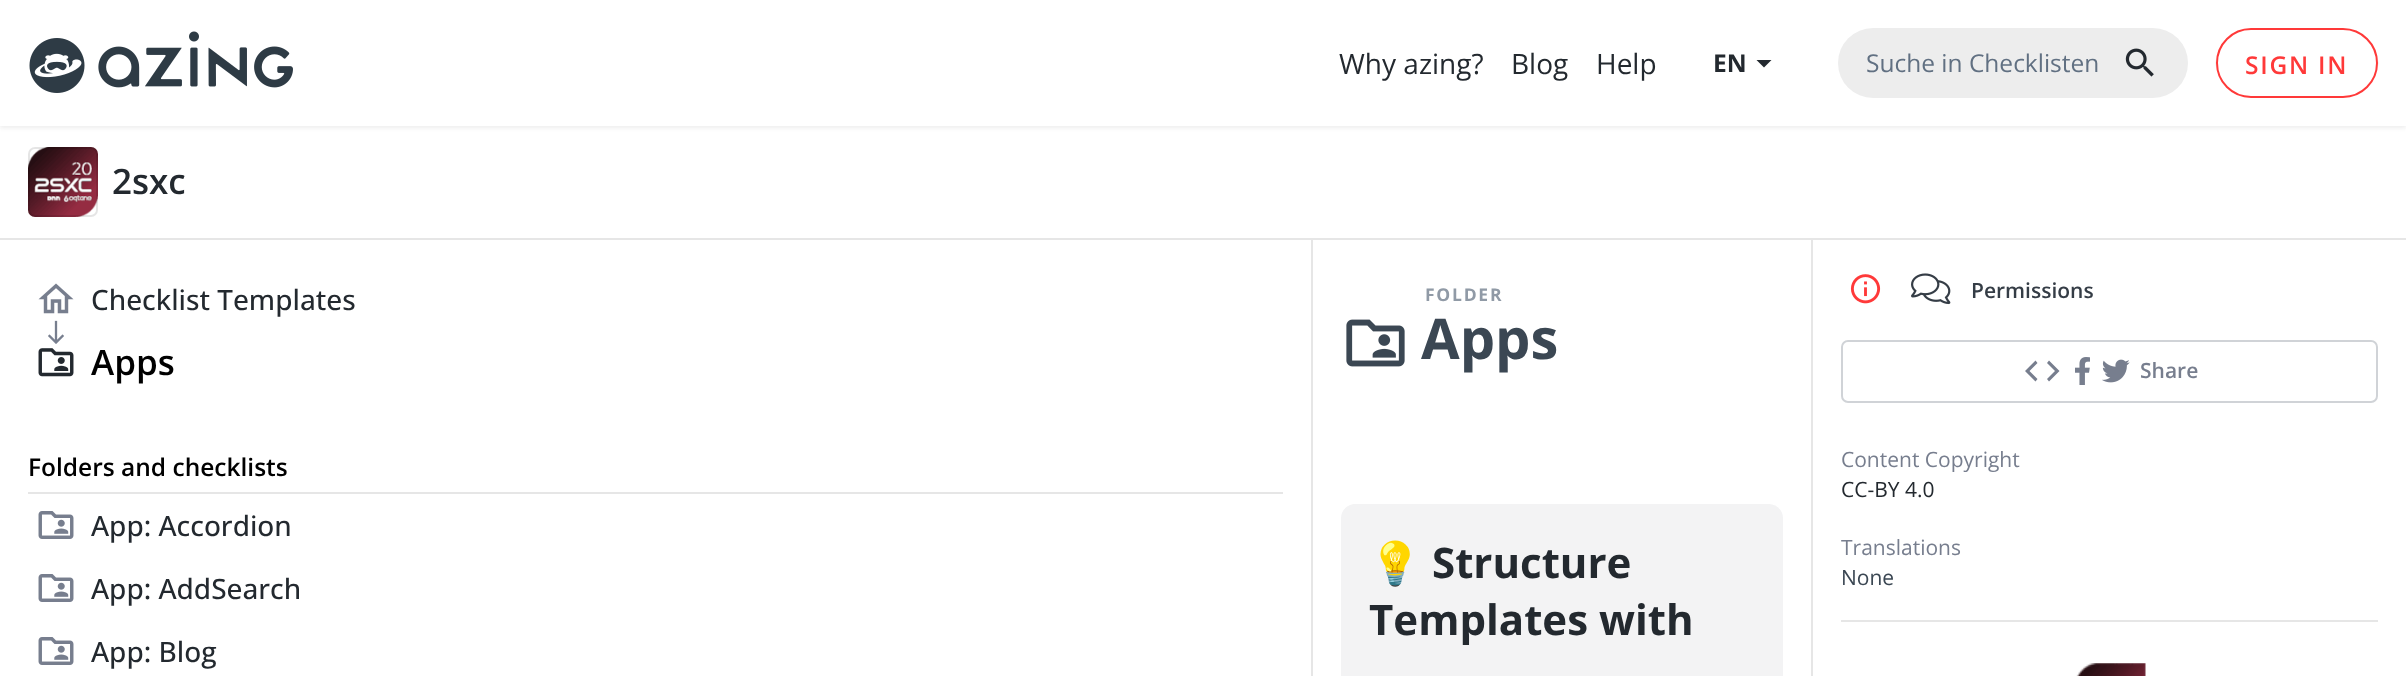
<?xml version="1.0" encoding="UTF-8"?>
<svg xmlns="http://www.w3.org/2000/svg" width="2406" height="676">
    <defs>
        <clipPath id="clip1"><rect x="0" y="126" width="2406" height="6"/></clipPath>
        <filter id="blur1" x="-50%" y="-200%" width="200%" height="500%"><feGaussianBlur stdDeviation="2"/></filter>
    </defs>
    <rect width="100%" height="100%" fill="#FFFFFF"/>
    <g clip-path="url(#clip1)">
        <rect x="0" y="2" width="2406" height="126" fill="#EDEDED" filter="url(#blur1)"/>
    </g>
    <image x="29" y="31" width="264" height="62" href="img_01.png"/>
    <text x="1339" y="74" font-family="Open Sans" font-size="28" fill="#23292F">Why azing?</text>
    <text x="1511" y="74" font-family="Open Sans" font-size="28" fill="#23292F">Blog</text>
    <text x="1596" y="74" font-family="Open Sans" font-size="28" fill="#23292F">Help</text>
    <text x="1713" y="72" font-family="Open Sans" font-size="24.5" font-weight="700" fill="#23292F">EN</text>
    <path d="M 1756.5 60 L 1764 67.5 L 1771.5 60 Z" fill="#23292F"/>
    <rect x="1838" y="28" width="350" height="70" rx="35" fill="#EDEDED"/>
    <text x="1866" y="72" font-family="Open Sans" font-size="24.5" fill="#617082">Suche in Checklisten</text>
    <image x="2125" y="48" width="29" height="29" href="img_02.png"/>
    <ellipse cx="2297" cy="63" rx="81.5" ry="35" fill="#EBEBEB"/>
    <rect x="2217" y="29" width="160" height="68" rx="34" fill="#FFFFFF" stroke="#FF3939" stroke-width="2"/>
    <text x="2245" y="74" font-family="Open Sans" font-size="24.5" font-weight="600" letter-spacing="1.75" fill="#FF3939">SIGN IN</text>
    <rect x="0" y="238" width="2406" height="2" fill="#E6E6E6"/>
    <image x="28" y="147" width="70" height="70" href="img_03.png"/>
    <rect x="29" y="148" width="68" height="68" rx="6" fill="none" stroke="#000000" stroke-opacity="0.1" stroke-width="2"/>
    <text x="112" y="194" font-family="Open Sans" font-size="35" font-weight="600" fill="#23292F">2sxc</text>
    <rect x="1311" y="240" width="2" height="436" fill="#E6E6E6"/>
    <image x="38" y="283" width="36" height="31" href="img_04.png"/>
    <text x="91" y="310" font-family="Open Sans" font-size="28" font-weight="500" fill="#23292F">Checklist Templates</text>
    <image x="48" y="320" width="16" height="24" href="img_05.png"/>
    <image x="38" y="348" width="36" height="29" href="img_06.png"/>
    <text x="91" y="375" font-family="Open Sans" font-size="35" font-weight="600" fill="#000000">Apps</text>
    <rect x="28" y="492" width="1255" height="2" fill="#E6E6E6"/>
    <text x="28" y="476" font-family="Open Sans" font-size="24.5" font-weight="600" fill="#000000">Folders and checklists</text>
    <image x="38" y="511" width="36" height="28" href="img_07.png"/>
    <text x="91" y="536" font-family="Open Sans" font-size="28" font-weight="500" fill="#23292F">App: Accordion</text>
    <image x="38" y="574" width="36" height="28" href="img_07.png"/>
    <text x="91" y="599" font-family="Open Sans" font-size="28" font-weight="500" fill="#23292F">App: AddSearch</text>
    <image x="38" y="637" width="36" height="28" href="img_07.png"/>
    <text x="91" y="662" font-family="Open Sans" font-size="28" font-weight="500" fill="#23292F">App: Blog</text>
    <image x="1346" y="319" width="59" height="48" href="img_08.png"/>
    <text x="1425" y="301" font-family="Open Sans" font-size="17.5" font-weight="700" letter-spacing="1.75" fill="#909AA6">FOLDER</text>
    <text x="1421" y="359" font-family="Open Sans" font-size="56" font-weight="700" fill="#3B4753">Apps</text>
    <path d="M 1355 504 H 1769 C 1776.5 504 1783 510.5 1783 518 V 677 H 1341 V 518 C 1341 510.5 1347.5 504 1355 504 Z" fill="#F3F3F4"/>
    <text x="1369" y="578" font-family="Noto Color Emoji" font-size="42" font-weight="700" fill="#23292F">💡</text>
    <text x="1432" y="578" font-family="Open Sans" font-size="42" font-weight="700" fill="#23292F">Structure</text>
    <text x="1369" y="635" font-family="Open Sans" font-size="42" font-weight="700" fill="#23292F">Templates with</text>
    <rect x="1811" y="240" width="2" height="436" fill="#E6E6E6"/>
    <image x="1850" y="274" width="31" height="30" href="img_09.png"/>
    <image x="1911" y="273" width="40" height="32" href="img_10.png"/>
    <text x="1971" y="298" font-family="Open Sans" font-size="21" font-weight="600" fill="#353D46">Permissions</text>
    <rect x="1842" y="341" width="535" height="61" rx="6" fill="none" stroke="#D0D3D7" stroke-width="2"/>
    <path d="M 2037.5 379 L 2029.5 371 L 2037.5 363 L 2035.5 360.5 L 2025 371 L 2035.5 381.5 Z M 2047 379 L 2055 371 L 2047 363 L 2049 360.5 L 2059.5 371 L 2049 381.5 Z" fill="#777E8E"/>
    <image x="2075" y="357" width="15" height="28" href="img_11.png"/>
    <image x="2102" y="359" width="28" height="24" href="img_12.png"/>
    <text x="2140" y="378" font-family="Open Sans" font-size="21" font-weight="600" fill="#777E8E">Share</text>
    <text x="1841" y="467" font-family="Open Sans" font-size="21" fill="#777E8E">Content Copyright</text>
    <text x="1841" y="497" font-family="Open Sans" font-size="21" fill="#23292F">CC-BY 4.0</text>
    <text x="1841" y="555" font-family="Open Sans" font-size="21" fill="#777E8E">Translations</text>
    <text x="1841" y="585" font-family="Open Sans" font-size="21" fill="#3B4753">None</text>
    <rect x="1841" y="620" width="537" height="2" fill="#E6E6E6"/>
    <image x="2076" y="663" width="70" height="13" href="img_13.png"/>
</svg>
